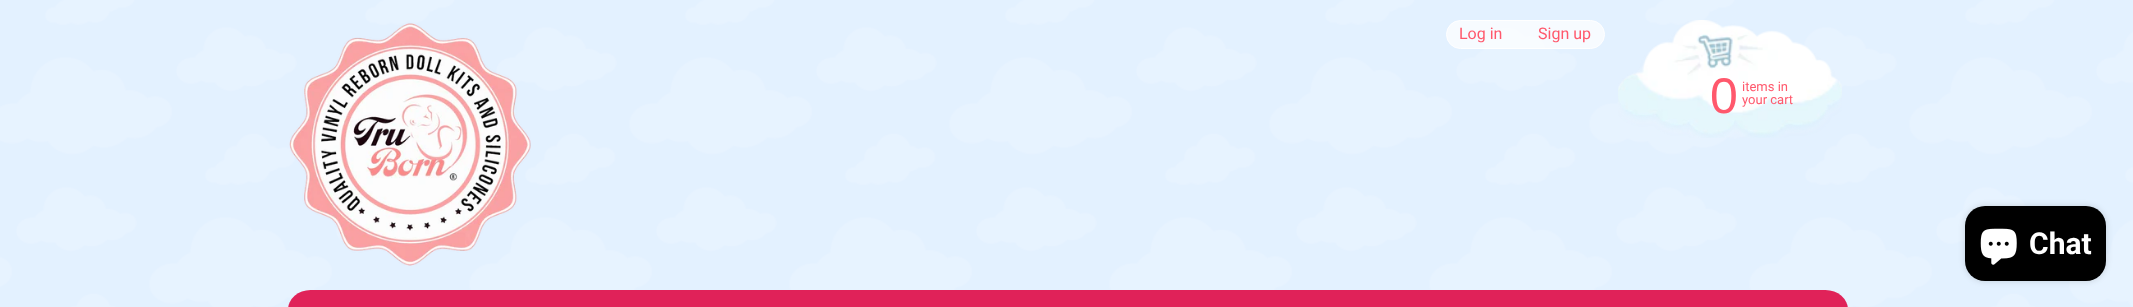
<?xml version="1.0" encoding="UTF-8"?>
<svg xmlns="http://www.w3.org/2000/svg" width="2133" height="307">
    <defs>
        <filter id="blur1" x="-50%" y="-200%" width="200%" height="500%"><feGaussianBlur stdDeviation="3"/></filter>
    </defs>
    <rect width="100%" height="100%" fill="#E3F1FF"/>
    <image x="0" y="0" width="2133" height="307" href="img_01.png"/>
    <image x="289" y="23" width="242" height="243" href="img_02.png"/>
    <rect x="1446.5" y="20.5" width="158" height="28" rx="14" fill="#FFFFFF" fill-opacity="0.7" stroke="#FFFFFF"/>
    <text x="1459" y="39" font-family="Roboto" font-size="16" fill="#FF586C">Log in</text>
    <text x="1538" y="39" font-family="Roboto" font-size="16" fill="#FF586C">Sign up</text>
    <image x="1618" y="20" width="224" height="118" href="img_03.png"/>
    <text x="1710" y="113" font-family="Liberation Sans" font-size="50" fill="#FF586C">0</text>
    <text font-family="Roboto" font-size="13" fill="#FF586C">
        <tspan x="1742" y="91">items in</tspan>
        <tspan x="1742" y="104">your cart</tspan>
    </text>
    <rect x="288" y="290" width="1560" height="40" rx="22.5" fill="#E02259"/>
    <rect x="1965" y="206" width="141" height="75" rx="20" fill="#000000" fill-opacity="0.15" filter="url(#blur1)"/>
    <rect x="1965" y="206" width="141" height="75" rx="20" fill="#000000"/>
    <image x="1980" y="228" width="37" height="37" href="img_04.png"/>
    <text x="2029" y="254" font-family="Roboto" font-size="30" font-weight="700" fill="#FFFFFF">Chat</text>
</svg>
